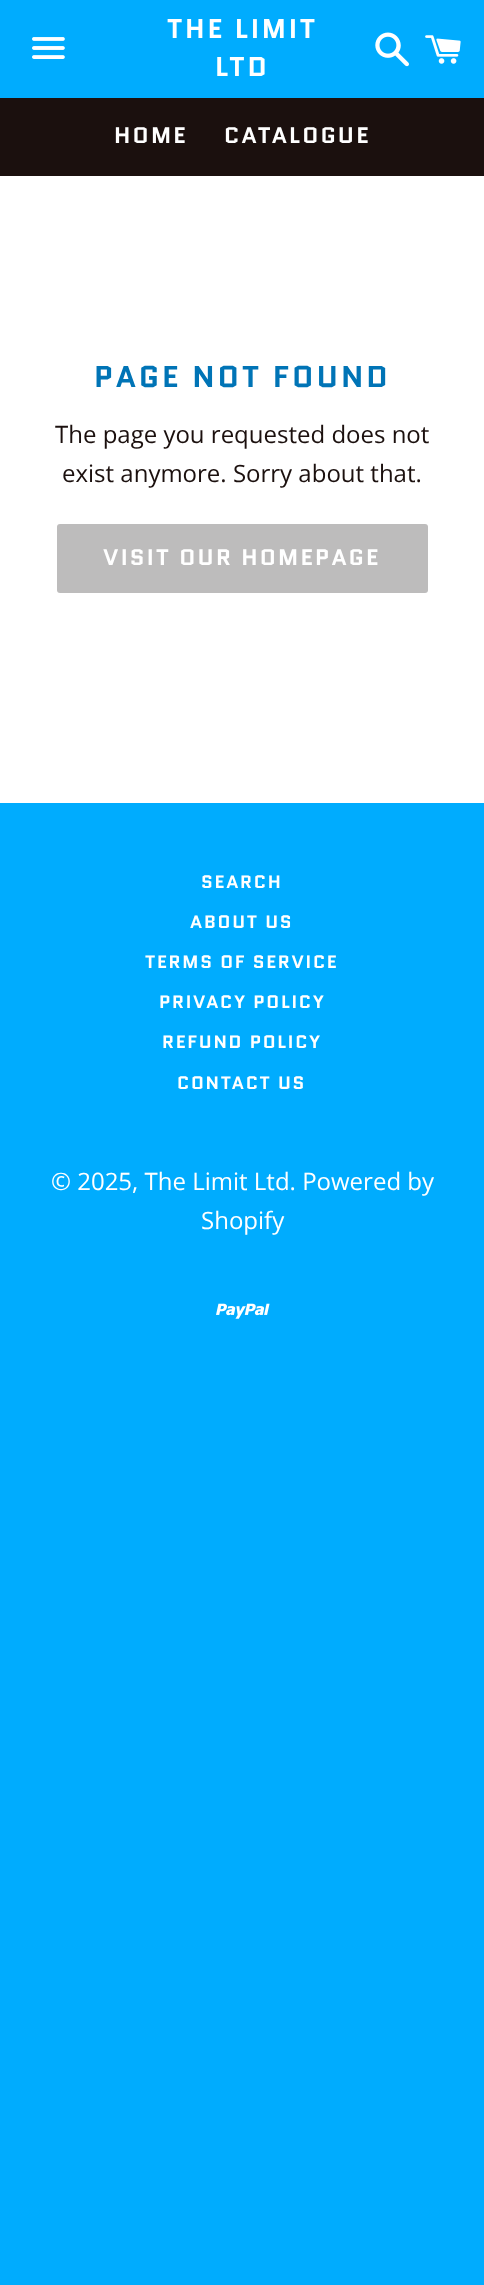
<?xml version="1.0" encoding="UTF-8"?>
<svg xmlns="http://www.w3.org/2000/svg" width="484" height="2285">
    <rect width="100%" height="100%" fill="#00ACFE"/>
    <rect x="0" y="176" width="484" height="627" fill="#FFFFFF"/>
    <image x="32" y="37" width="33" height="22" href="img_01.png"/>
    <text x="167" y="38" font-family="Quantico" font-size="27" font-weight="700" letter-spacing="2.75" fill="#FFFFFF">THE LIMIT</text>
    <text x="215" y="76" font-family="Quantico" font-size="27" font-weight="700" letter-spacing="2.75" fill="#FFFFFF">LTD</text>
    <image x="375" y="32" width="34" height="35" href="img_02.png"/>
    <image x="425" y="35" width="36" height="29" href="img_03.png"/>
    <rect x="0" y="98" width="484" height="78" fill="#1B100E"/>
    <text x="114" y="143" font-family="Quantico" font-size="22.5" font-weight="700" letter-spacing="2.25" fill="#FFFFFF">HOME</text>
    <text x="224" y="143" font-family="Quantico" font-size="22.5" font-weight="700" letter-spacing="2.25" fill="#FFFFFF">CATALOGUE</text>
    <text x="94" y="387" font-family="Quantico" font-size="30" font-weight="700" letter-spacing="3" fill="#0074B6">PAGE NOT FOUND</text>
    <text x="55" y="443" font-family="Open Sans" font-size="24" fill="#1B100E">The page you requested does not</text>
    <text x="62" y="482" font-family="Open Sans" font-size="24" fill="#1B100E">exist anymore. Sorry about that.</text>
    <rect x="57" y="524" width="371" height="69" rx="3" fill="#BDBCBC"/>
    <text x="103" y="565" font-family="Quantico" font-size="22.5" font-weight="700" letter-spacing="2.25" fill="#FFFFFF">VISIT OUR HOMEPAGE</text>
    <text x="201" y="888" font-family="Quantico" font-size="18" font-weight="700" letter-spacing="1.75" fill="#FFFFFF">SEARCH</text>
    <text x="190" y="928" font-family="Quantico" font-size="18" font-weight="700" letter-spacing="1.75" fill="#FFFFFF">ABOUT US</text>
    <text x="145" y="968" font-family="Quantico" font-size="18" font-weight="700" letter-spacing="1.75" fill="#FFFFFF">TERMS OF SERVICE</text>
    <text x="159" y="1008" font-family="Quantico" font-size="18" font-weight="700" letter-spacing="1.75" fill="#FFFFFF">PRIVACY POLICY</text>
    <text x="162" y="1048" font-family="Quantico" font-size="18" font-weight="700" letter-spacing="1.75" fill="#FFFFFF">REFUND POLICY</text>
    <text x="177" y="1089" font-family="Quantico" font-size="18" font-weight="700" letter-spacing="1.75" fill="#FFFFFF">CONTACT US</text>
    <text x="51" y="1190" font-family="Open Sans" font-size="24" fill="#FFFFFF">© 2025, The Limit Ltd. Powered by</text>
    <text x="201" y="1229" font-family="Open Sans" font-size="24" fill="#FFFFFF">Shopify</text>
    <image x="216" y="1303" width="54" height="16" href="img_04.png"/>
</svg>
